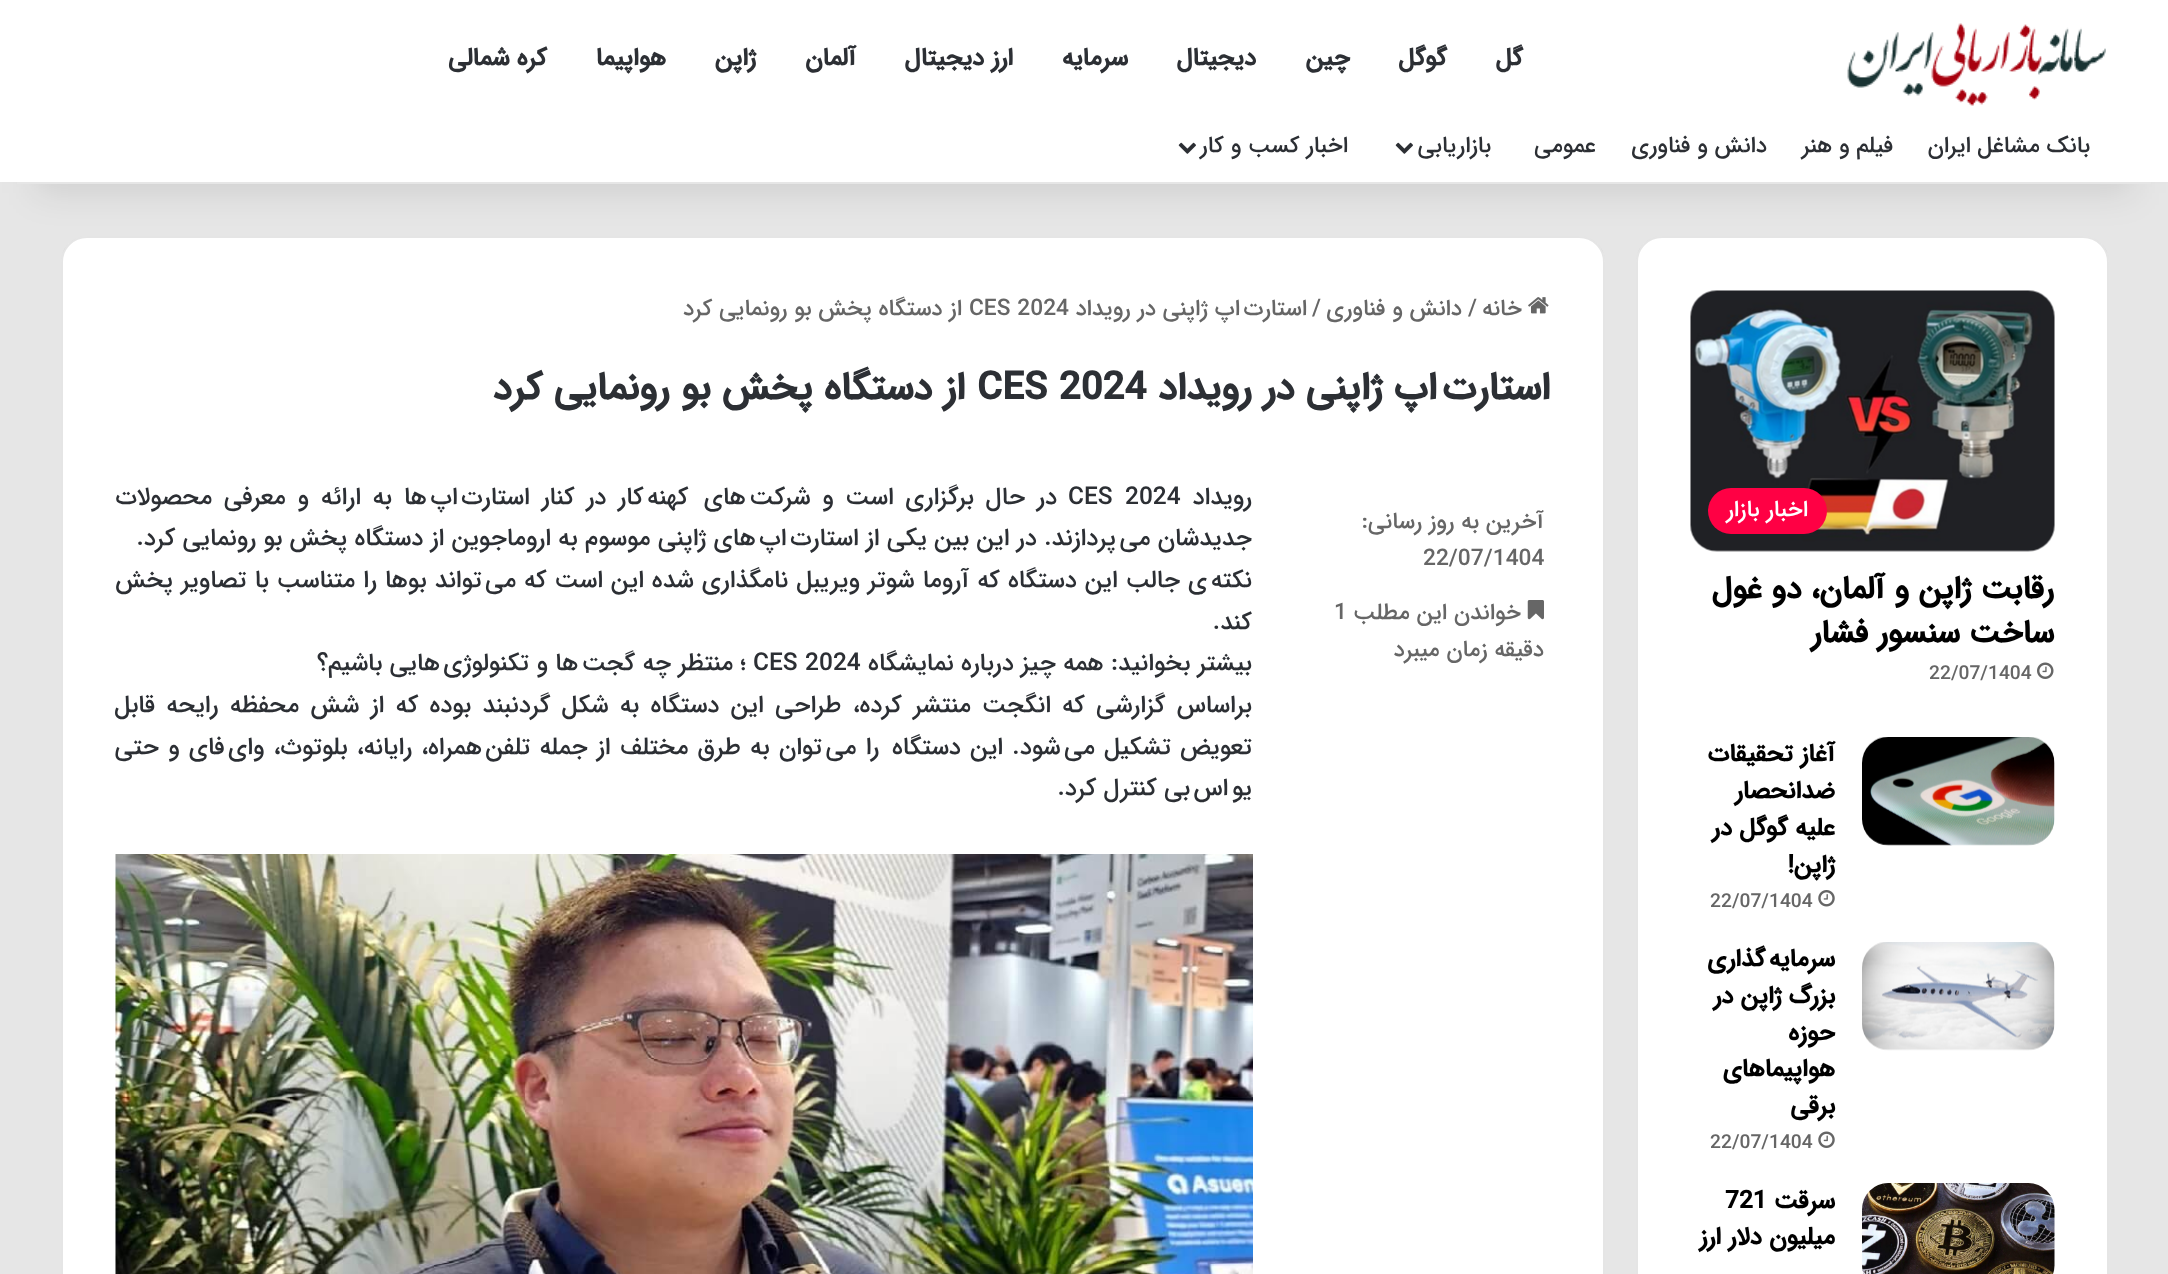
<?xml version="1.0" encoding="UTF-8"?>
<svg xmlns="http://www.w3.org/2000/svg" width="2168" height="1274">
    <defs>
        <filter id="blur1" x="-50%" y="-200%" width="200%" height="500%"><feGaussianBlur stdDeviation="17.5"/></filter>
    </defs>
    <rect width="100%" height="100%" fill="#E6E6E6"/>
    <rect x="1636" y="236" width="473" height="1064" rx="26" fill="#FFFFFF"/>
    <rect x="1637" y="237" width="471" height="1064" rx="25" fill="none" stroke="#000000" stroke-opacity="0.1" stroke-width="2"/>
    <rect x="61" y="236" width="1544" height="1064" rx="26" fill="#FFFFFF"/>
    <rect x="62" y="237" width="1542" height="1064" rx="25" fill="none" stroke="#000000" stroke-opacity="0.1" stroke-width="2"/>
    <rect x="35" y="79" width="2098" height="114" fill="#000000" fill-opacity="0.1" filter="url(#blur1)"/>
    <rect x="0" y="0" width="2168" height="182" fill="#FFFFFF"/>
    <image x="1847" y="23" width="259" height="83" href="img_01.png"/>
    <text x="1523" y="65" font-family="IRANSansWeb" font-size="24.5" font-weight="700" direction="rtl" fill="#2C2F34">گل</text>
    <text x="1447" y="65" font-family="IRANSansWeb" font-size="24.5" font-weight="700" direction="rtl" fill="#2C2F34">گوگل</text>
    <text x="1350" y="65" font-family="IRANSansWeb" font-size="24.5" font-weight="700" direction="rtl" fill="#2C2F34">چین</text>
    <text x="1256" y="65" font-family="IRANSansWeb" font-size="24.5" font-weight="700" direction="rtl" fill="#2C2F34">دیجیتال</text>
    <text x="1128" y="65" font-family="IRANSansWeb" font-size="24.5" font-weight="700" direction="rtl" fill="#2C2F34">سرمایه</text>
    <text x="1013" y="65" font-family="IRANSansWeb" font-size="24.5" font-weight="700" direction="rtl" fill="#2C2F34">ارز دیجیتال</text>
    <text x="856" y="65" font-family="IRANSansWeb" font-size="24.5" font-weight="700" direction="rtl" fill="#2C2F34">آلمان</text>
    <text x="756" y="65" font-family="IRANSansWeb" font-size="24.5" font-weight="700" direction="rtl" fill="#2C2F34">ژاپن</text>
    <text x="666" y="65" font-family="IRANSansWeb" font-size="24.5" font-weight="700" direction="rtl" fill="#2C2F34">هواپیما</text>
    <text x="547" y="65" font-family="IRANSansWeb" font-size="24.5" font-weight="700" direction="rtl" fill="#2C2F34">کره شمالی</text>
    <rect x="17" y="182" width="2134" height="2" fill="#E6E6E6"/>
    <text x="2090" y="152" font-family="IRANSansWeb" font-size="22.75" font-weight="500" direction="rtl" fill="#2C2F34">بانک مشاغل ایران</text>
    <text x="1893" y="152" font-family="IRANSansWeb" font-size="22.75" font-weight="500" direction="rtl" fill="#2C2F34">فیلم و هنر</text>
    <text x="1767" y="152" font-family="IRANSansWeb" font-size="22.75" font-weight="500" direction="rtl" fill="#2C2F34">دانش و فناوری</text>
    <text x="1596" y="152" font-family="IRANSansWeb" font-size="22.75" font-weight="500" direction="rtl" fill="#2C2F34">عمومی</text>
    <text x="1491" y="152" font-family="IRANSansWeb" font-size="22.75" font-weight="500" direction="rtl" fill="#2C2F34">بازاریابی</text>
    <image x="1395" y="142" width="18" height="12" href="img_02.png"/>
    <text x="1348" y="152" font-family="IRANSansWeb" font-size="22.75" font-weight="500" direction="rtl" fill="#2C2F34">اخبار کسب و کار</text>
    <image x="1178" y="142" width="18" height="12" href="img_02.png"/>
    <image x="1690" y="290" width="365" height="262" href="img_03.png"/>
    <rect x="1708" y="488" width="119" height="46" rx="23" fill="#FF0044"/>
    <text x="1808" y="516" font-family="IRANSansWeb" font-size="22.75" font-weight="500" direction="rtl" fill="#FFFFFF">اخبار بازار</text>
    <text font-family="IRANSansWeb" font-size="31.5" font-weight="700" direction="rtl" fill="#000000">
        <tspan x="2054" y="598">رقابت ژاپن و آلمان، دو غول</tspan>
        <tspan x="2054" y="642">ساخت سنسور فشار</tspan>
    </text>
    <image x="2037" y="662" width="17" height="17" href="img_04.png"/>
    <text x="1929" y="679" font-family="IRANSansWeb" font-size="19.25" font-weight="500" fill="#666666">22/07/1404</text>
    <image x="1862" y="737" width="193" height="109" href="img_05.png"/>
    <text font-family="IRANSansWeb" font-size="24.5" font-weight="700" direction="rtl" fill="#000000">
        <tspan x="1835" y="761">آغاز تحقیقات</tspan>
        <tspan x="1835" y="798">ضدانحصار</tspan>
        <tspan x="1835" y="835">علیه گوگل در</tspan>
        <tspan x="1835" y="872">ژاپن!</tspan>
    </text>
    <image x="1818" y="890" width="17" height="17" href="img_06.png"/>
    <text x="1710" y="907" font-family="IRANSansWeb" font-size="19.25" font-weight="500" fill="#666666">22/07/1404</text>
    <image x="1862" y="942" width="193" height="109" href="img_07.png"/>
    <text font-family="IRANSansWeb" font-size="24.5" font-weight="700" direction="rtl" fill="#000000">
        <tspan x="1835" y="966">سرمایه گذاری</tspan>
        <tspan x="1835" y="1003">بزرگ ژاپن در</tspan>
        <tspan x="1835" y="1040">حوزه</tspan>
        <tspan x="1835" y="1076">هواپیماهای</tspan>
        <tspan x="1835" y="1113">برقی</tspan>
    </text>
    <image x="1818" y="1131" width="17" height="17" href="img_08.png"/>
    <text x="1710" y="1148" font-family="IRANSansWeb" font-size="19.25" font-weight="500" fill="#666666">22/07/1404</text>
    <image x="1862" y="1183" width="193" height="91" href="img_09.png"/>
    <text x="1835" y="1208" font-family="IRANSansWeb" font-size="24.5" font-weight="700" direction="rtl" fill="#000000">سرقت</text>
    <text x="1725" y="1208" font-family="IRANSansWeb" font-size="24.5" font-weight="700" fill="#000000">721</text>
    <text x="1835" y="1244" font-family="IRANSansWeb" font-size="24.5" font-weight="700" direction="rtl" fill="#000000">میلیون دلار ارز</text>
    <image x="1528" y="297" width="21" height="17" href="img_10.png"/>
    <text x="1522" y="315" font-family="IRANSansWeb" font-size="22.75" font-weight="500" direction="rtl" fill="#666666">خانه</text>
    <text x="1468" y="315" font-family="IRANSansWeb" font-size="22.75" font-weight="500" fill="#666666">/</text>
    <text x="1462" y="315" font-family="IRANSansWeb" font-size="22.75" font-weight="500" direction="rtl" fill="#666666">دانش و فناوری</text>
    <text x="1312" y="315" font-family="IRANSansWeb" font-size="22.75" font-weight="500" fill="#666666">/</text>
    <text x="1307" y="315" font-family="IRANSansWeb" font-size="22.75" font-weight="500" direction="rtl" fill="#666666">استارت اپ ژاپنی در رویداد</text>
    <text x="969" y="315" font-family="IRANSansWeb" font-size="22.75" font-weight="500" fill="#666666">CES 2024</text>
    <text x="962" y="315" font-family="IRANSansWeb" font-size="22.75" font-weight="500" direction="rtl" fill="#666666">از دستگاه پخش بو رونمایی کرد</text>
    <text x="1550" y="399" font-family="IRANSansWeb" font-size="38.5" font-weight="700" direction="rtl" fill="#2C2F34">استارت اپ ژاپنی در رویداد</text>
    <text x="977" y="399" font-family="IRANSansWeb" font-size="38.5" font-weight="700" fill="#2C2F34">CES 2024</text>
    <text x="965" y="399" font-family="IRANSansWeb" font-size="38.5" font-weight="700" direction="rtl" fill="#2C2F34">از دستگاه پخش بو رونمایی کرد</text>
    <text x="1544" y="528" font-family="IRANSansWeb" font-size="22.75" font-weight="500" direction="rtl" fill="#666666">آخرین به روز رسانی:</text>
    <text x="1423" y="565" font-family="IRANSansWeb" font-size="22.75" font-weight="500" fill="#666666">22/07/1404</text>
    <image x="1527" y="600" width="17" height="20" href="img_11.png"/>
    <text x="1521" y="619" font-family="IRANSansWeb" font-size="22.75" font-weight="500" direction="rtl" fill="#666666">خواندن این مطلب</text>
    <text x="1334" y="619" font-family="IRANSansWeb" font-size="22.75" font-weight="500" fill="#666666">1</text>
    <text x="1544" y="656" font-family="IRANSansWeb" font-size="22.75" font-weight="500" direction="rtl" fill="#666666">دقیقه زمان میبرد</text>
    <text x="1252" y="504" font-family="IRANSansWeb" font-size="24.5" font-weight="500" direction="rtl" fill="#2C2F34">رویداد</text>
    <text x="1125" y="504" font-family="IRANSansWeb" font-size="24.5" font-weight="500" fill="#2C2F34">2024</text>
    <text x="1068" y="504" font-family="IRANSansWeb" font-size="24.5" font-weight="500" fill="#2C2F34">CES</text>
    <text x="1057" y="504" word-spacing="4.5" font-family="IRANSansWeb" font-size="24.5" font-weight="500" direction="rtl" fill="#2C2F34">در حال برگزاری است و شرکت های  کهنه کار در کنار استارت اپ ها به ارائه و معرفی محصولات</text>
    <text font-family="IRANSansWeb" font-size="24.5" font-weight="500" direction="rtl" fill="#2C2F34">
        <tspan x="1252" y="545">جدیدشان می پردازند. در این بین یکی از استارت اپ های ژاپنی موسوم به اروماجوین از دستگاه پخش بو رونمایی کرد.</tspan>
        <tspan x="1252" y="587" word-spacing="0.75">نکته ی جالب این دستگاه که آروما شوتر ویریبل نامگذاری شده این است که می تواند بوها را متناسب با تصاویر پخش</tspan>
        <tspan x="1252" y="629">کند.</tspan>
        <tspan x="1252" y="670">بیشتر بخوانید: همه چیز درباره نمایشگاه</tspan>
    </text>
    <text x="753" y="670" font-family="IRANSansWeb" font-size="24.5" font-weight="500" fill="#2C2F34">CES 2024</text>
    <text x="746" y="670" font-family="IRANSansWeb" font-size="24.5" font-weight="500" direction="rtl" fill="#2C2F34">؛ منتظر چه گجت ها و تکنولوژی هایی باشیم؟</text>
    <text font-family="IRANSansWeb" font-size="24.5" font-weight="500" direction="rtl" fill="#2C2F34">
        <tspan x="1252" y="712" word-spacing="4.1">براساس گزارشی که انگجت منتشر کرده، طراحی این دستگاه به شکل گردنبند بوده که از شش محفظه رایحه قابل</tspan>
        <tspan x="1252" y="754" word-spacing="1.9">تعویض تشکیل می شود. این دستگاه  را می توان به طرق مختلف از جمله تلفن همراه، رایانه، بلوتوث، وای فای و حتی</tspan>
        <tspan x="1252" y="795">یو اس بی کنترل کرد.</tspan>
    </text>
    <image x="115" y="854" width="1138" height="420" href="img_12.png"/>
</svg>
